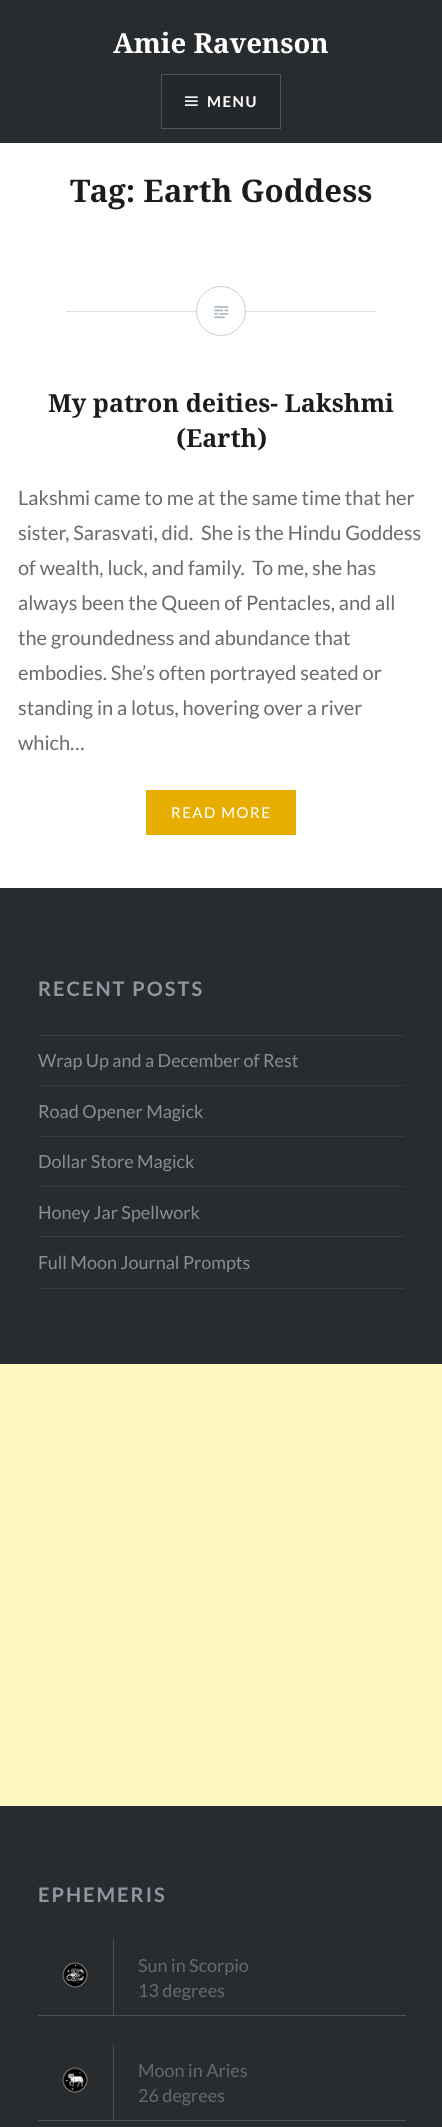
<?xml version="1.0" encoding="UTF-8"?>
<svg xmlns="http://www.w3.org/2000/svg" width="442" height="2127">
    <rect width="100%" height="100%" fill="#FFFFFF"/>
    <rect x="0" y="0" width="442" height="143" fill="#292C2F"/>
    <text x="113" y="53" font-family="Noto Serif" font-size="27.5" font-weight="700" fill="#FFFFFF">Amie Ravenson</text>
    <rect x="161.5" y="74.5" width="119" height="54" fill="#25282A" stroke="#515355"/>
    <image x="185" y="96" width="13" height="10" href="img_01.png"/>
    <text x="207" y="107" font-family="Lato" font-size="15" font-weight="700" letter-spacing="1.5" fill="#FFFFFF">MENU</text>
    <text x="70" y="202" font-family="Noto Serif" font-size="31.25" font-weight="700" fill="#1A1C1E">Tag: Earth Goddess</text>
    <rect x="66" y="311" width="310" height="1" fill="#D8DFE6"/>
    <circle cx="221" cy="311" r="24.5" fill="#FFFFFF" stroke="#C6CFD8"/>
    <image x="214" y="306" width="15" height="13" href="img_02.png"/>
    <text x="48" y="412" font-family="Noto Serif" font-size="25" font-weight="700" fill="#1A1C1E">My patron deities- Lakshmi</text>
    <text x="176" y="447" font-family="Noto Serif" font-size="25" font-weight="700" fill="#1A1C1E">(Earth)</text>
    <text font-family="Lato" font-size="20" fill="#6A6C6E" xml:space="preserve"><tspan x="18" y="505">Lakshmi came to me at the same time that her</tspan><tspan x="18" y="540">sister, Sarasvati, did.  She is the Hindu Goddess</tspan><tspan x="18" y="575">of wealth, luck, and family.  To me, she has</tspan><tspan x="18" y="610">always been the Queen of Pentacles, and all</tspan><tspan x="18" y="645">the groundedness and abundance that</tspan><tspan x="18" y="680">embodies. She’s often portrayed seated or</tspan><tspan x="18" y="715">standing in a lotus, hovering over a river</tspan><tspan x="18" y="750">which…</tspan></text>
    <rect x="146" y="790" width="150" height="45" fill="#E7AE01"/>
    <text x="171" y="818" font-family="Lato" font-size="15" letter-spacing="1.5" fill="#FFFFFF">READ MORE</text>
    <rect x="0" y="888" width="442" height="1239" fill="#292C2F"/>
    <text x="38" y="996" font-family="Lato" font-size="20" font-weight="700" letter-spacing="2" fill="#8C97A2">RECENT POSTS</text>
    <rect x="38" y="1035" width="367" height="1" fill="#363B40"/>
    <rect x="38" y="1085" width="367" height="1" fill="#363B40"/>
    <text x="38" y="1067" font-family="Lato" font-size="18" fill="#858D95">Wrap Up and a December of Rest</text>
    <rect x="38" y="1136" width="367" height="1" fill="#363B40"/>
    <text x="38" y="1118" font-family="Lato" font-size="18" fill="#858D95">Road Opener Magick</text>
    <rect x="38" y="1186" width="367" height="1" fill="#363B40"/>
    <text x="38" y="1168" font-family="Lato" font-size="18" fill="#858D95">Dollar Store Magick</text>
    <rect x="38" y="1236" width="367" height="1" fill="#363B40"/>
    <text x="38" y="1219" font-family="Lato" font-size="18" fill="#858D95">Honey Jar Spellwork</text>
    <rect x="38" y="1288" width="367" height="1" fill="#363B40"/>
    <text x="38" y="1269" font-family="Lato" font-size="18" fill="#858D95">Full Moon Journal Prompts</text>
    <rect x="0" y="1364" width="442" height="442" fill="#FFF9C0"/>
    <text x="38" y="1902" font-family="Lato" font-size="20" font-weight="700" letter-spacing="2" fill="#8C97A2">EPHEMERIS</text>
    <rect x="113" y="2015" width="293" height="1" fill="#48515B"/>
    <rect x="113" y="1940" width="1" height="76" fill="#48515B"/>
    <rect x="38" y="2015" width="76" height="1" fill="#48515B"/>
    <image x="62" y="1962" width="26" height="26" href="img_03.png"/>
    <text font-family="Lato" font-size="18" fill="#616A74">
        <tspan x="138" y="1972">Sun in Scorpio</tspan>
        <tspan x="138" y="1997">13 degrees</tspan>
    </text>
    <rect x="113" y="2120" width="293" height="1" fill="#48515B"/>
    <rect x="113" y="2045" width="1" height="76" fill="#48515B"/>
    <rect x="38" y="2120" width="76" height="1" fill="#48515B"/>
    <image x="62" y="2067" width="26" height="26" href="img_04.png"/>
    <text font-family="Lato" font-size="18" fill="#616A74">
        <tspan x="138" y="2077">Moon in Aries</tspan>
        <tspan x="138" y="2102">26 degrees</tspan>
    </text>
</svg>
